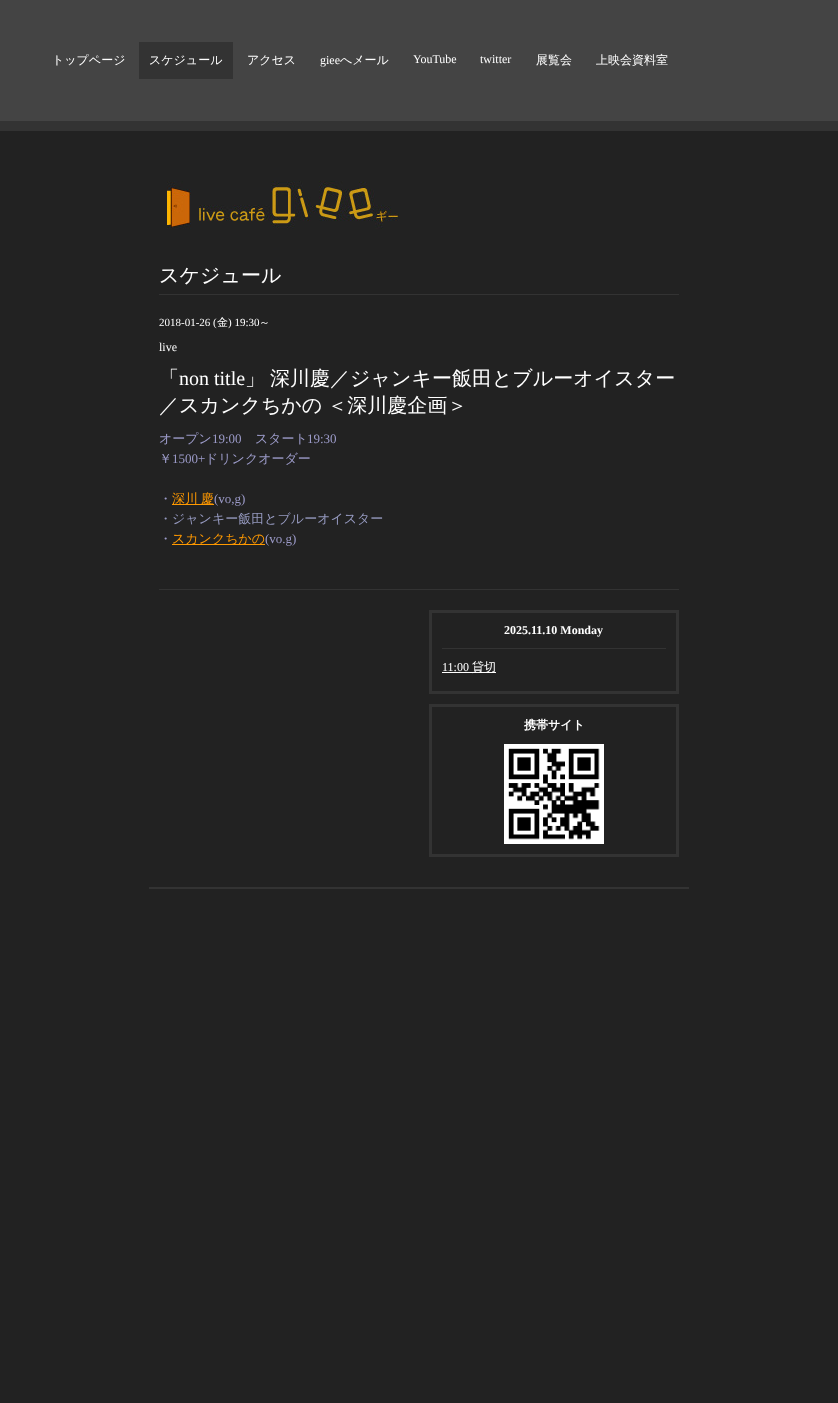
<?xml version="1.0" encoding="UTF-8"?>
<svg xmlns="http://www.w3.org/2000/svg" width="838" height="1403">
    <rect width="100%" height="100%" fill="#222222"/>
    <rect x="0" y="0" width="838" height="121" fill="#444444"/>
    <rect x="0" y="121" width="838" height="10" fill="#333333"/>
    <text x="52" y="64" font-family="WenQuanYi Zen Hei" font-size="12" font-weight="500" fill="#FFFFFF">トップページ</text>
    <rect x="139" y="42" width="94" height="37" fill="#333333"/>
    <text x="149" y="64" font-family="WenQuanYi Zen Hei" font-size="12" font-weight="500" fill="#FFFFFF">スケジュール</text>
    <text x="247" y="64" font-family="WenQuanYi Zen Hei" font-size="12" font-weight="500" fill="#FFFFFF">アクセス</text>
    <text x="320" y="64" font-family="Liberation Serif" font-size="12" fill="#FFFFFF">giee</text>
    <text x="340" y="64" font-family="WenQuanYi Zen Hei" font-size="12" font-weight="500" fill="#FFFFFF">へメール</text>
    <text x="413" y="63" font-family="Liberation Serif" font-size="12" fill="#FFFFFF">YouTube</text>
    <text x="480" y="63" font-family="Liberation Serif" font-size="12" fill="#FFFFFF">twitter</text>
    <text x="536" y="64" font-family="WenQuanYi Zen Hei" font-size="12" font-weight="500" fill="#FFFFFF">展覧会</text>
    <text x="596" y="64" font-family="WenQuanYi Zen Hei" font-size="12" font-weight="500" fill="#FFFFFF">上映会資料室</text>
    <image x="167" y="181" width="232" height="48" href="img_01.png"/>
    <rect x="159" y="294" width="520" height="1" fill="#333333"/>
    <text x="159" y="282" font-family="WenQuanYi Zen Hei" font-size="20" font-weight="500" fill="#FFFFFF">スケジュール</text>
    <rect x="159" y="589" width="520" height="1" fill="#333333"/>
    <text x="159" y="326" font-family="Liberation Serif" font-size="11" fill="#FFFFFF">2018-01-26 (</text>
    <text x="217" y="326" font-family="WenQuanYi Zen Hei" font-size="11" font-weight="500" fill="#FFFFFF">金</text>
    <text x="228" y="326" font-family="Liberation Serif" font-size="11" fill="#FFFFFF">) 19:30</text>
    <text x="259" y="326" font-family="WenQuanYi Zen Hei" font-size="11" font-weight="500" fill="#FFFFFF">～</text>
    <text x="159" y="351" font-family="Liberation Serif" font-size="12" fill="#FFFFFF">live</text>
    <text x="159" y="385" font-family="WenQuanYi Zen Hei" font-size="20" font-weight="500" fill="#FFFFFF">「</text>
    <text x="179" y="385" font-family="Liberation Serif" font-size="20" fill="#FFFFFF">non title</text>
    <text x="245" y="385" font-family="WenQuanYi Zen Hei" font-size="20" font-weight="500" fill="#FFFFFF">」</text>
    <text x="270" y="385" font-family="WenQuanYi Zen Hei" font-size="20" font-weight="500" fill="#FFFFFF">深川慶／ジャンキー飯田とブルーオイスター</text>
    <text x="159" y="412" word-spacing="-1" font-family="WenQuanYi Zen Hei" font-size="20" font-weight="500" fill="#FFFFFF">／スカンクちかの ＜深川慶企画＞</text>
    <text x="159" y="443" font-family="WenQuanYi Zen Hei" font-size="13" font-weight="500" fill="#9C9BC9">オープン</text>
    <text x="212" y="443" font-family="Liberation Serif" font-size="13" fill="#9C9BC9">19:00</text>
    <text x="255" y="443" font-family="WenQuanYi Zen Hei" font-size="13" font-weight="500" fill="#9C9BC9">スタート</text>
    <text x="307" y="443" font-family="Liberation Serif" font-size="13" fill="#9C9BC9">19:30</text>
    <text x="159" y="463" font-family="WenQuanYi Zen Hei" font-size="13" font-weight="500" fill="#9C9BC9">￥</text>
    <text x="172" y="463" font-family="Liberation Serif" font-size="13" fill="#9C9BC9">1500+</text>
    <text x="205" y="463" font-family="WenQuanYi Zen Hei" font-size="13" font-weight="500" fill="#9C9BC9">ドリンクオーダー</text>
    <text x="159" y="503" font-family="WenQuanYi Zen Hei" font-size="13" font-weight="500" fill="#9C9BC9">・</text>
    <rect x="172" y="504" width="42" height="1" fill="#FF9900"/>
    <text x="172" y="503" word-spacing="-1" font-family="WenQuanYi Zen Hei" font-size="13" font-weight="500" fill="#FF9900">深川 慶</text>
    <text x="214" y="503" font-family="Liberation Serif" font-size="13" fill="#9C9BC9">(vo,g)</text>
    <text x="159" y="523" font-family="WenQuanYi Zen Hei" font-size="13" font-weight="500" fill="#9599BF">・ジャンキー飯田とブルーオイスター</text>
    <text x="159" y="543" font-family="WenQuanYi Zen Hei" font-size="13" font-weight="500" fill="#9C9BC9">・</text>
    <rect x="172" y="544" width="93" height="1" fill="#FF9900"/>
    <text x="172" y="543" font-family="WenQuanYi Zen Hei" font-size="13" font-weight="500" fill="#FF9900">スカンクちかの</text>
    <text x="265" y="543" font-family="Liberation Serif" font-size="13" fill="#9C9BC9">(vo.g)</text>
    <rect x="430.5" y="611.5" width="247" height="81" fill="none" stroke="#333333" stroke-width="3"/>
    <text x="504" y="634" font-family="Liberation Serif" font-size="12" font-weight="700" fill="#FFFFFF">2025.11.10 Monday</text>
    <rect x="442" y="648" width="224" height="1" fill="#333333"/>
    <text x="442" y="671" font-family="Liberation Serif" font-size="12" fill="#FFFFFF">11:00</text>
    <rect x="442" y="672" width="54" height="1" fill="#FFFFFF"/>
    <text x="472" y="671" font-family="WenQuanYi Zen Hei" font-size="12" font-weight="500" fill="#FFFFFF">貸切</text>
    <rect x="430.5" y="705.5" width="247" height="150" fill="none" stroke="#333333" stroke-width="3"/>
    <text x="524" y="729" font-family="WenQuanYi Zen Hei" font-size="12" font-weight="700" fill="#FFFFFF">携帯サイト</text>
    <image x="504" y="744" width="100" height="100" href="img_02.png"/>
    <rect x="149" y="887" width="540" height="2" fill="#333333"/>
</svg>
